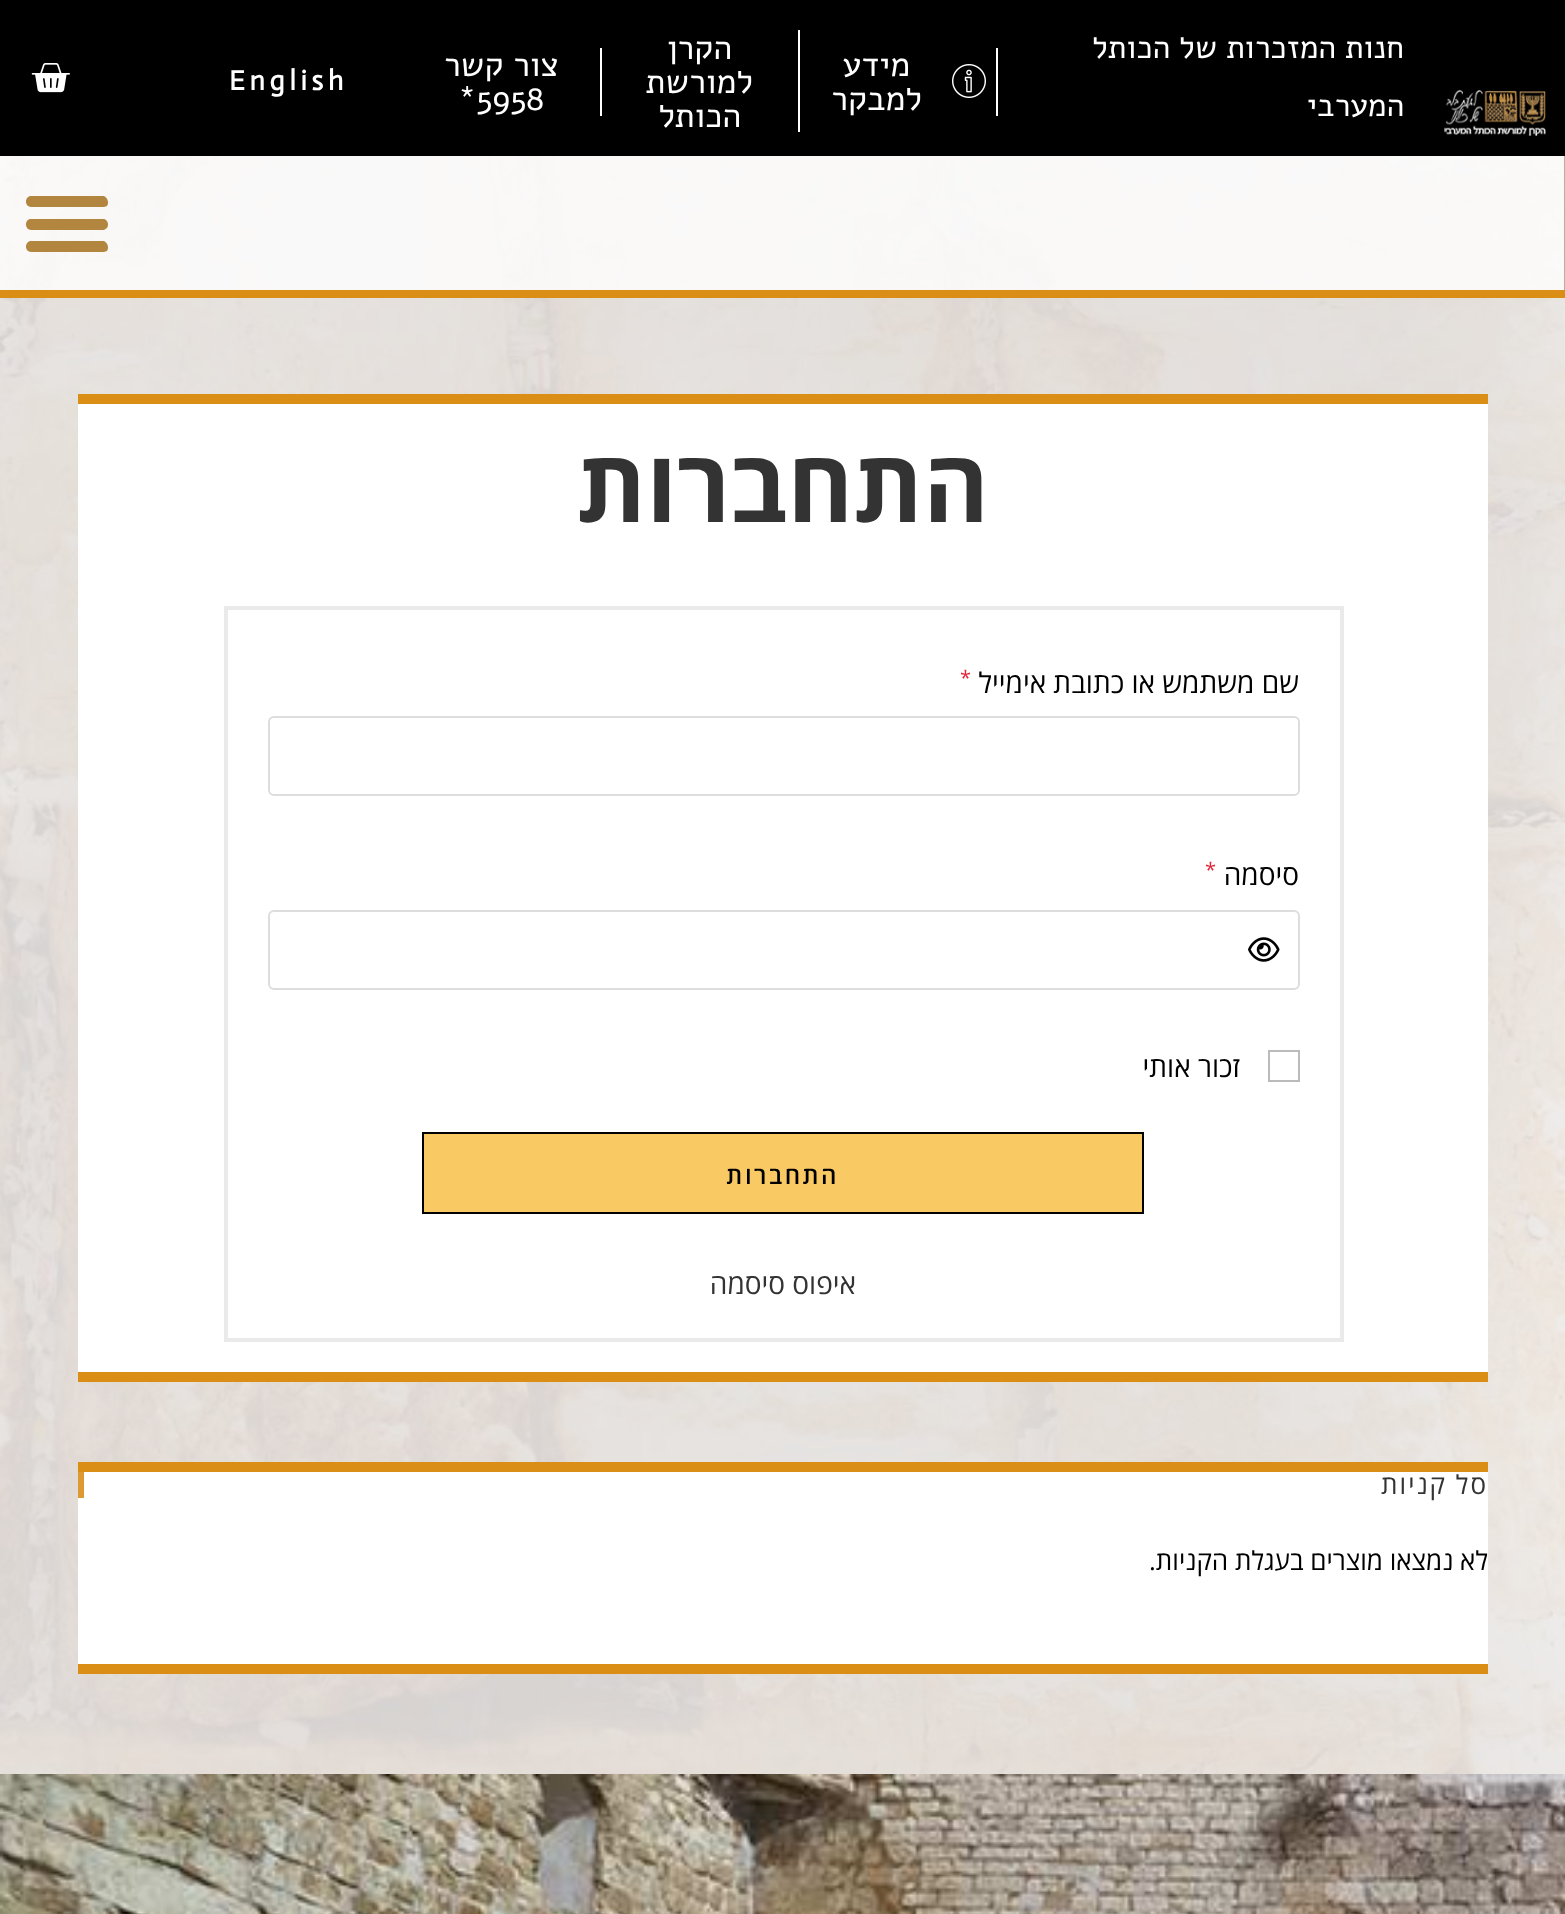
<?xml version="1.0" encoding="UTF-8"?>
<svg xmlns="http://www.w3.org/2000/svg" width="1565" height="1914">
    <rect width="100%" height="100%" fill="#FFFFFF"/>
    <image x="0" y="156" width="1565" height="1618" href="img_01.png"/>
    <rect x="0" y="0" width="1565" height="156" fill="#000000"/>
    <image x="1444" y="90" width="102" height="46" href="img_02.png"/>
    <text font-family="Alef" font-size="32" direction="rtl" fill="#FFFFFF">
        <tspan x="1404" y="58">חנות המזכרות של הכותל</tspan>
        <tspan x="1404" y="116">המערבי</tspan>
    </text>
    <rect x="996" y="48" width="2" height="68" fill="#FFFFFF"/>
    <image x="952" y="64" width="34" height="34" href="img_03.png"/>
    <text x="910" y="76" font-family="Alef" font-size="34" direction="rtl" fill="#FFFFFF">מידע</text>
    <text x="922" y="110" font-family="Alef" font-size="34" direction="rtl" fill="#FFFFFF">למבקר</text>
    <rect x="798" y="30" width="2" height="102" fill="#FFFFFF"/>
    <text x="732" y="59" font-family="Alef" font-size="34" direction="rtl" fill="#FFFFFF">הקרן</text>
    <text x="753" y="93" font-family="Alef" font-size="34" direction="rtl" fill="#FFFFFF">למורשת</text>
    <text x="741" y="127" font-family="Alef" font-size="34" direction="rtl" fill="#FFFFFF">הכותל</text>
    <rect x="600" y="48" width="2" height="68" fill="#FFFFFF"/>
    <text x="559" y="76" font-family="Alef" font-size="34" direction="rtl" fill="#FFFFFF">צור קשר</text>
    <text x="458" y="110" font-family="Alef" font-size="34" fill="#FFFFFF">*5958</text>
    <text x="229" y="90" font-family="Actor" font-size="28" font-weight="700" letter-spacing="4.75" fill="#FFFFFF">English</text>
    <image x="31" y="63" width="39" height="30" href="img_04.png"/>
    <rect x="0" y="156" width="1564" height="134" fill="#FFFFFF" fill-opacity="0.8"/>
    <rect x="0" y="290" width="1565" height="8" fill="#DB8E15"/>
    <rect x="1564" y="156" width="1" height="134" fill="#B9ADA1"/>
    <path d="M 31 207 H 104 L 107 206 C 109 203 108 198 104 196 H 30 C 24 198 25 207 31 207 Z M 31 230 H 104 L 107 228 C 109 225 108 220 104 219 H 30 C 24 220 25 230 31 230 Z M 31 252 H 104 L 107 251 C 109 248 108 243 104 241 H 30 C 24 243 25 252 31 252 Z" fill="#B2863F"/>
    <rect x="78" y="404" width="1410" height="968" fill="#FFFFFF"/>
    <rect x="78" y="394" width="1410" height="10" fill="#DB8E15"/>
    <rect x="78" y="1372" width="1410" height="10" fill="#DB8E15"/>
    <text x="989" y="522" font-family="Open Sans" font-size="100" font-weight="700" direction="rtl" fill="#333333">התחברות</text>
    <rect x="226" y="608" width="1116" height="732" fill="none" stroke="#EAEAEA" stroke-width="4"/>
    <text x="1299" y="693" font-family="Open Sans" font-size="28" direction="rtl" fill="#000000">שם משתמש או כתובת אימייל</text>
    <text x="960" y="685" font-family="Open Sans" font-size="20" fill="#E42234">*</text>
    <rect x="269" y="717" width="1030" height="78" rx="5" fill="none" stroke="#DDDDDD" stroke-width="2"/>
    <text x="1205" y="877" font-family="Open Sans" font-size="20" fill="#E42234">*</text>
    <text x="1299" y="885" font-family="Open Sans" font-size="28" direction="rtl" fill="#000000">סיסמה</text>
    <rect x="269" y="911" width="1030" height="78" rx="5" fill="none" stroke="#DDDDDD" stroke-width="2"/>
    <image x="1248" y="937" width="32" height="25" href="img_05.png"/>
    <rect x="1269" y="1051" width="30" height="30" fill="none" stroke="#BBBBBB" stroke-width="2"/>
    <text x="1240" y="1077" font-family="Open Sans" font-size="28" direction="rtl" fill="#000000">זכור אותי</text>
    <rect x="423" y="1133" width="720" height="80" fill="#F9CA63" stroke="#000000" stroke-width="2"/>
    <text x="839" y="1184" font-family="Open Sans" font-size="24" font-weight="600" letter-spacing="2.5" direction="rtl" fill="#000000">התחברות</text>
    <text x="856" y="1294" font-family="Open Sans" font-size="28" direction="rtl" fill="#333333">איפוס סיסמה</text>
    <rect x="78" y="1472" width="1410" height="192" fill="#FFFFFF"/>
    <rect x="78" y="1462" width="1410" height="10" fill="#DB8E15"/>
    <rect x="78" y="1664" width="1410" height="10" fill="#DB8E15"/>
    <rect x="78" y="1472" width="6" height="26" fill="#DD9933"/>
    <text x="1488" y="1494" font-family="Open Sans" font-size="26" letter-spacing="2" direction="rtl" fill="#333333">סל קניות</text>
    <text x="1488" y="1570" font-family="Open Sans" font-size="26" direction="rtl" fill="#000000">לא נמצאו מוצרים בעגלת הקניות.</text>
    <image x="0" y="1774" width="1565" height="140" href="img_06.png"/>
</svg>
